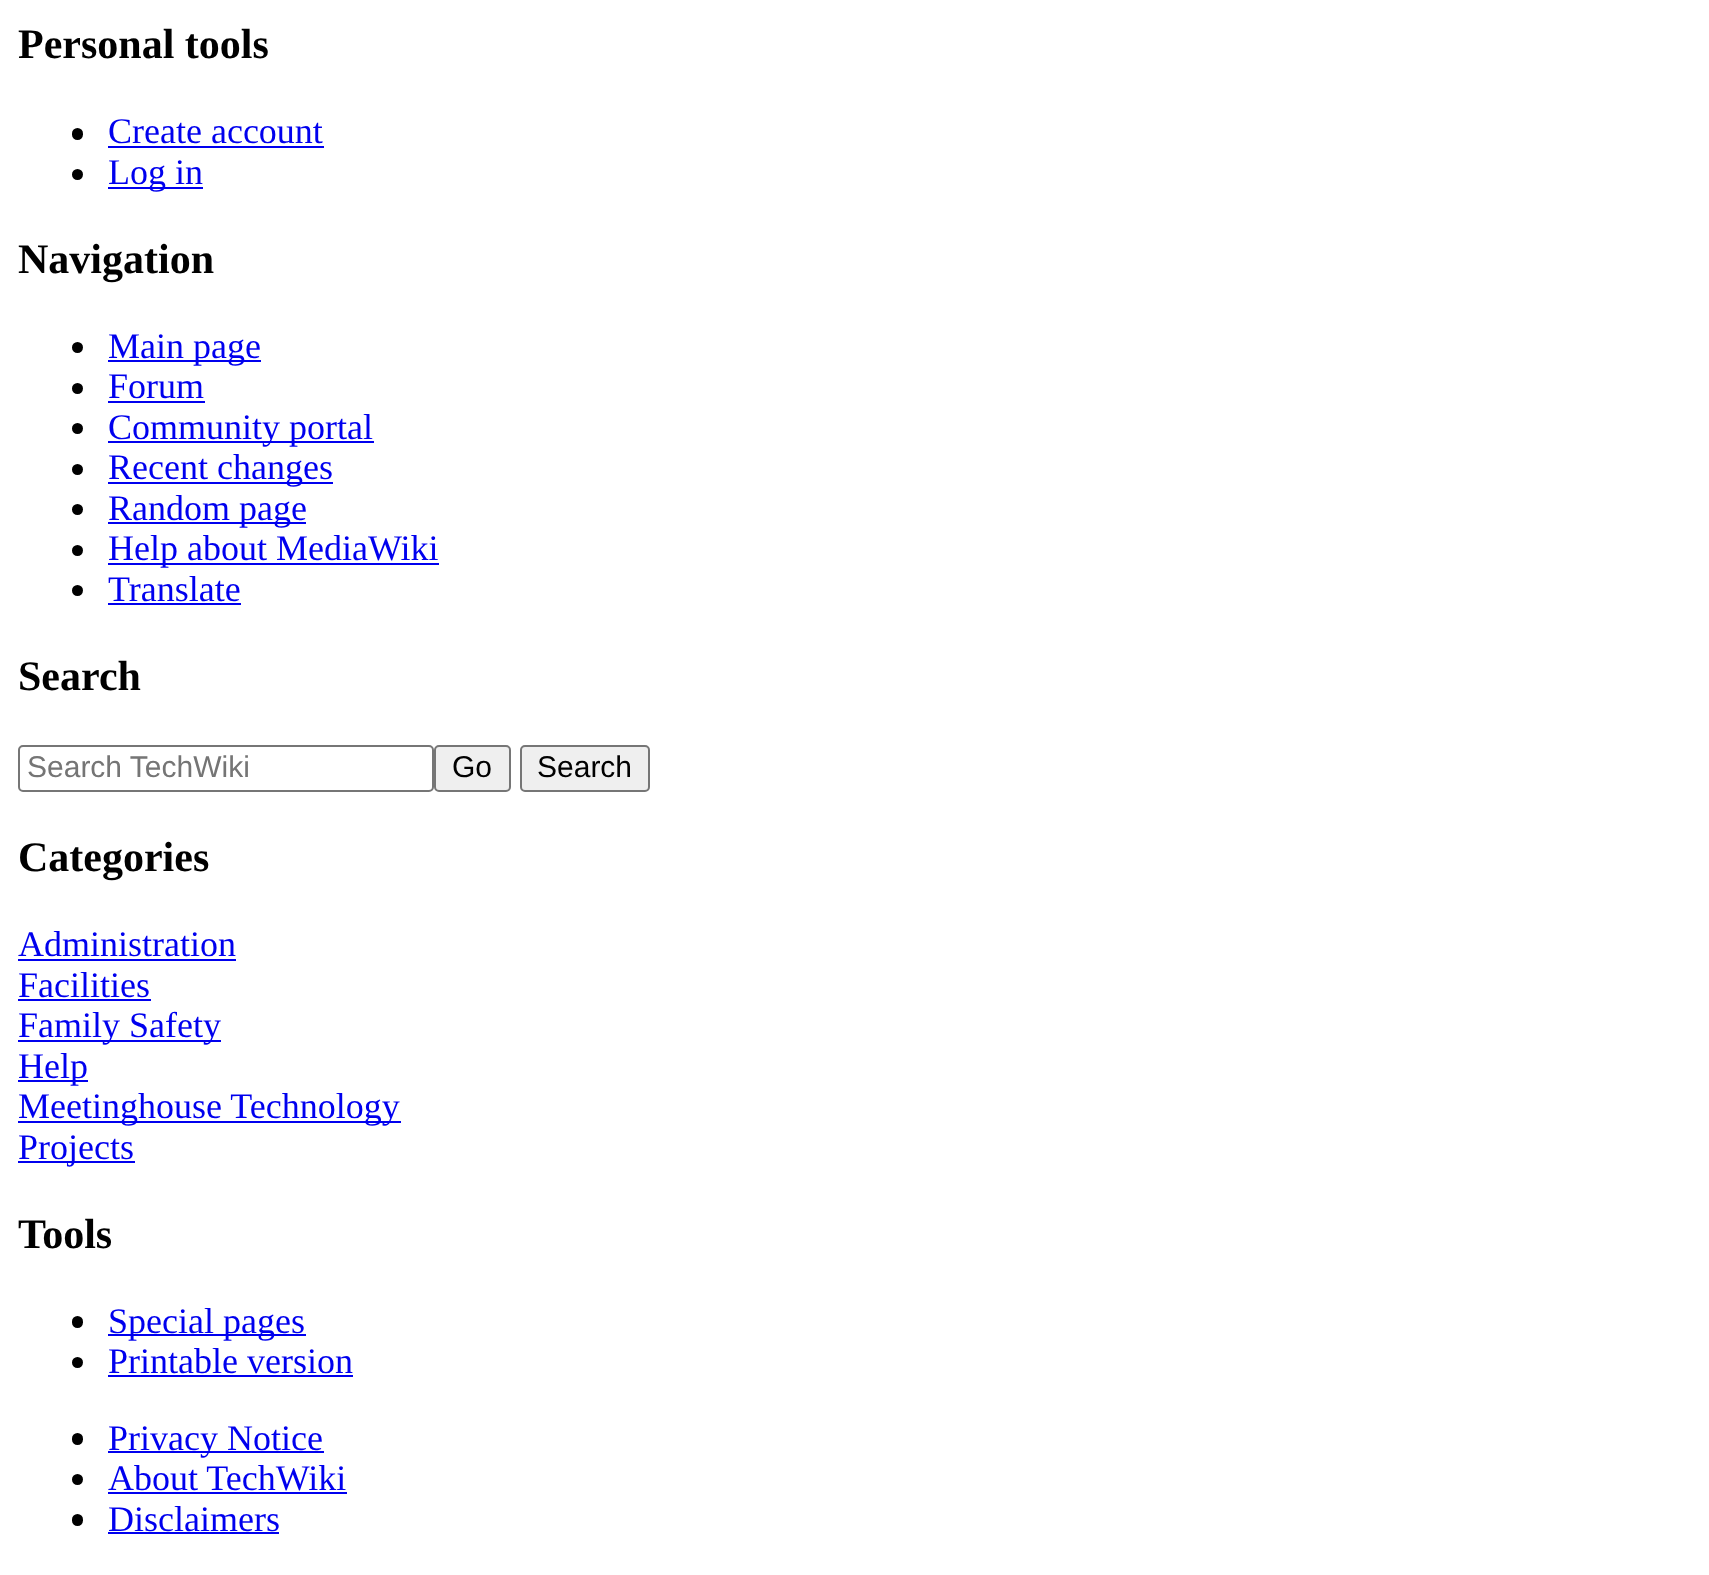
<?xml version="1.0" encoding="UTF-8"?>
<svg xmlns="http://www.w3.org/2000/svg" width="1709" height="1575">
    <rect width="100%" height="100%" fill="#FFFFFF"/>
    <text x="18" y="58" font-family="Liberation Serif" font-size="42" font-weight="700" fill="#000000">Personal tools</text>
    <rect x="72" y="128" width="11" height="12" rx="5.5" fill="#000000"/>
    <text x="108" y="143" font-family="Liberation Serif" font-size="36" fill="#0000EE">Create account</text>
    <rect x="108" y="146" width="216" height="2" fill="#0000EE"/>
    <circle cx="77.5" cy="174.5" r="5.5" fill="#000000"/>
    <rect x="108" y="187" width="95" height="2" fill="#0000EE"/>
    <text x="108" y="184" font-family="Liberation Serif" font-size="36" fill="#0000EE">Log in</text>
    <text x="18" y="273" font-family="Liberation Serif" font-size="42" font-weight="700" fill="#000000">Navigation</text>
    <circle cx="77.5" cy="347.5" r="5.5" fill="#000000"/>
    <rect x="108" y="360" width="153" height="2" fill="#0000EE"/>
    <text x="108" y="358" font-family="Liberation Serif" font-size="36" fill="#0000EE">Main page</text>
    <circle cx="77.5" cy="388.5" r="5.5" fill="#000000"/>
    <text x="108" y="398" font-family="Liberation Serif" font-size="36" fill="#0000EE">Forum</text>
    <rect x="108" y="401" width="97" height="2" fill="#0000EE"/>
    <circle cx="77.5" cy="428.5" r="5.5" fill="#000000"/>
    <rect x="108" y="441" width="266" height="2" fill="#0000EE"/>
    <text x="108" y="439" font-family="Liberation Serif" font-size="36" fill="#0000EE">Community portal</text>
    <circle cx="77.5" cy="469.5" r="5.5" fill="#000000"/>
    <rect x="108" y="482" width="225" height="2" fill="#0000EE"/>
    <text x="108" y="479" font-family="Liberation Serif" font-size="36" fill="#0000EE">Recent changes</text>
    <circle cx="77.5" cy="509.5" r="5.5" fill="#000000"/>
    <rect x="108" y="522" width="198" height="2" fill="#0000EE"/>
    <text x="108" y="520" font-family="Liberation Serif" font-size="36" fill="#0000EE">Random page</text>
    <circle cx="77.5" cy="550.5" r="5.5" fill="#000000"/>
    <rect x="108" y="563" width="331" height="2" fill="#0000EE"/>
    <text x="108" y="560" font-family="Liberation Serif" font-size="36" fill="#0000EE">Help about MediaWiki</text>
    <circle cx="77.5" cy="590.5" r="5.5" fill="#000000"/>
    <text x="108" y="601" font-family="Liberation Serif" font-size="36" fill="#0000EE">Translate</text>
    <rect x="108" y="603" width="133" height="2" fill="#0000EE"/>
    <text x="18" y="690" font-family="Liberation Serif" font-size="42" font-weight="700" fill="#000000">Search</text>
    <rect x="19" y="746" width="414" height="45" rx="4" fill="none" stroke="#767676" stroke-width="2"/>
    <text x="27" y="777" font-family="Liberation Sans" font-size="30" fill="#757575">Search TechWiki</text>
    <rect x="435" y="746" width="75" height="45" rx="4" fill="#EFEFEF" stroke="#767676" stroke-width="2"/>
    <text x="452" y="777" font-family="Liberation Sans" font-size="30" fill="#000000">Go</text>
    <rect x="521" y="746" width="128" height="45" rx="4" fill="#EFEFEF" stroke="#767676" stroke-width="2"/>
    <text x="537" y="777" font-family="Liberation Sans" font-size="30" fill="#000000">Search</text>
    <text x="18" y="871" font-family="Liberation Serif" font-size="42" font-weight="700" fill="#000000">Categories</text>
    <text x="18" y="956" font-family="Liberation Serif" font-size="36" fill="#0000EE">Administration</text>
    <rect x="18" y="959" width="218" height="2" fill="#0000EE"/>
    <text x="18" y="997" font-family="Liberation Serif" font-size="36" fill="#0000EE">Facilities</text>
    <rect x="18" y="999" width="133" height="2" fill="#0000EE"/>
    <rect x="18" y="1040" width="203" height="2" fill="#0000EE"/>
    <text x="18" y="1037" font-family="Liberation Serif" font-size="36" fill="#0000EE">Family Safety</text>
    <rect x="18" y="1080" width="70" height="2" fill="#0000EE"/>
    <text x="18" y="1078" font-family="Liberation Serif" font-size="36" fill="#0000EE">Help</text>
    <rect x="18" y="1121" width="383" height="2" fill="#0000EE"/>
    <text x="18" y="1118" font-family="Liberation Serif" font-size="36" fill="#0000EE">Meetinghouse Technology</text>
    <rect x="18" y="1161" width="117" height="2" fill="#0000EE"/>
    <text x="18" y="1159" font-family="Liberation Serif" font-size="36" fill="#0000EE">Projects</text>
    <text x="18" y="1248" font-family="Liberation Serif" font-size="42" font-weight="700" fill="#000000">Tools</text>
    <rect x="72" y="1316" width="11" height="12" rx="5.5" fill="#000000"/>
    <rect x="108" y="1334" width="198" height="2" fill="#0000EE"/>
    <text x="108" y="1333" font-family="Liberation Serif" font-size="36" fill="#0000EE">Special pages</text>
    <circle cx="77.5" cy="1362.5" r="5.5" fill="#000000"/>
    <text x="108" y="1373" font-family="Liberation Serif" font-size="36" fill="#0000EE">Printable version</text>
    <rect x="108" y="1375" width="245" height="2" fill="#0000EE"/>
    <rect x="72" y="1433" width="11" height="12" rx="5.5" fill="#000000"/>
    <rect x="108" y="1451" width="216" height="2" fill="#0000EE"/>
    <text x="108" y="1450" font-family="Liberation Serif" font-size="36" fill="#0000EE">Privacy Notice</text>
    <circle cx="77.5" cy="1479.5" r="5.5" fill="#000000"/>
    <text x="108" y="1490" font-family="Liberation Serif" font-size="36" fill="#0000EE">About TechWiki</text>
    <rect x="108" y="1492" width="239" height="2" fill="#0000EE"/>
    <rect x="72" y="1514" width="11" height="12" rx="5.5" fill="#000000"/>
    <text x="108" y="1531" font-family="Liberation Serif" font-size="36" fill="#0000EE">Disclaimers</text>
    <rect x="108" y="1532" width="171" height="2" fill="#0000EE"/>
</svg>
